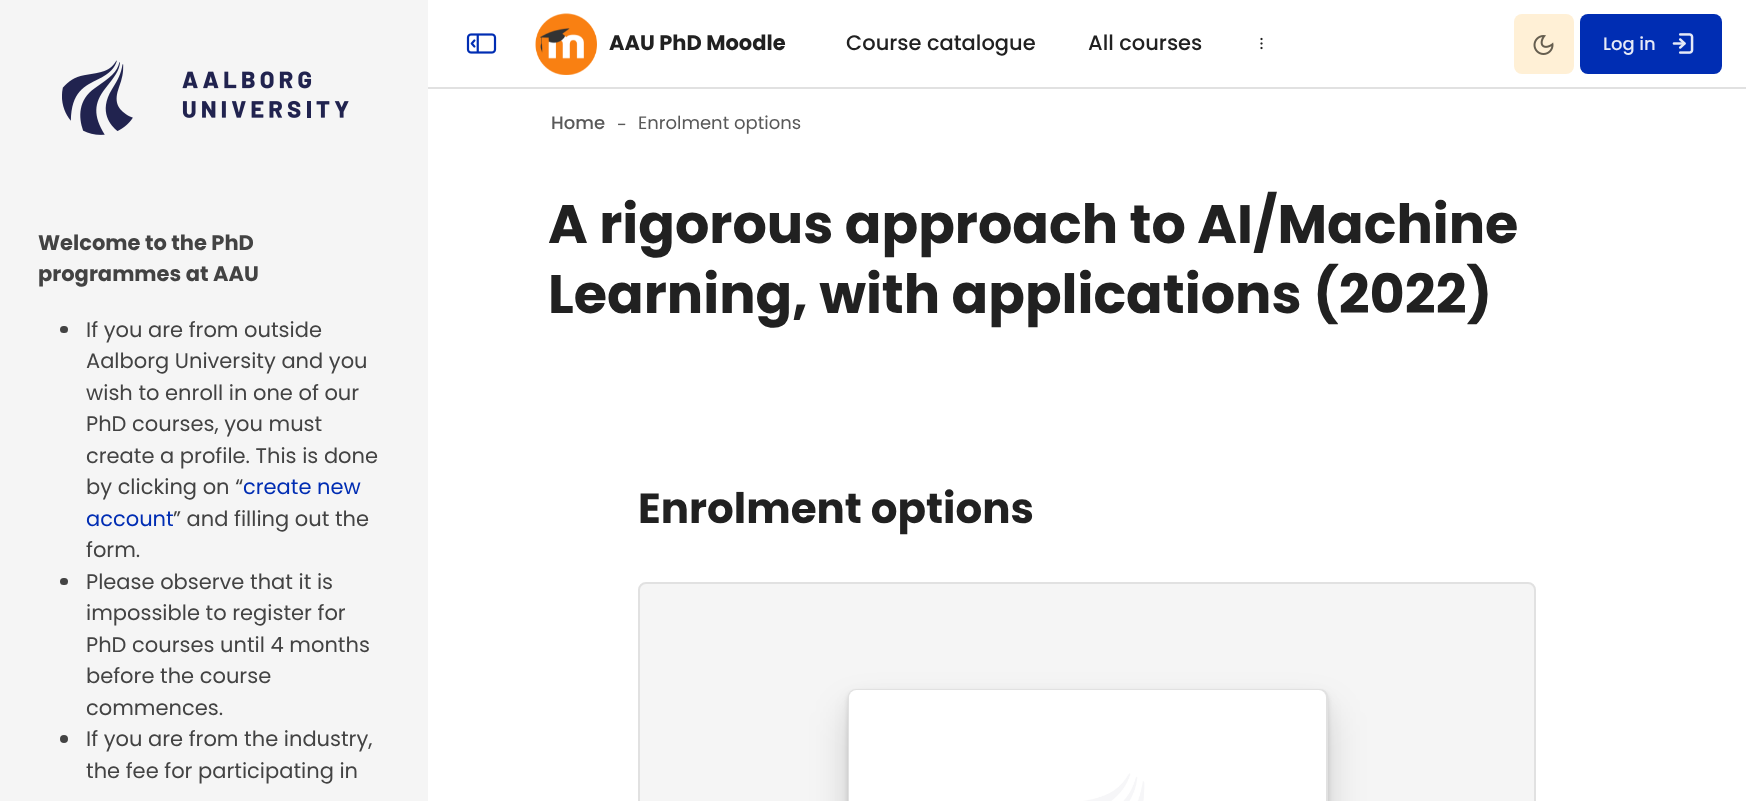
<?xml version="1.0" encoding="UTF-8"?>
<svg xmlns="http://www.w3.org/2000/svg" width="1746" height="801">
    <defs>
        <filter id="blur1" x="-50%" y="-200%" width="200%" height="500%"><feGaussianBlur stdDeviation="2"/></filter>
        <filter id="blur2" x="-50%" y="-200%" width="200%" height="500%"><feGaussianBlur stdDeviation="7.5"/></filter>
        <filter id="blur3" x="-50%" y="-200%" width="200%" height="500%"><feGaussianBlur stdDeviation="19"/></filter>
    </defs>
    <rect width="100%" height="100%" fill="#FFFFFF"/>
    <rect x="428" y="87" width="1318" height="2" fill="#E1E1E1"/>
    <image x="466" y="33" width="31" height="21" href="img_01.png"/>
    <image x="535" y="13" width="62" height="62" href="img_02.png"/>
    <text x="609" y="50" font-family="Poppins" font-size="21" font-weight="700" fill="#212121">AAU PhD Moodle</text>
    <text x="846" y="50" font-family="Poppins" font-size="21" font-weight="500" fill="#212121">Course catalogue</text>
    <text x="1088" y="50" font-family="Poppins" font-size="21" font-weight="500" fill="#212121">All courses</text>
    <image x="1260" y="37" width="3" height="13" href="img_03.png"/>
    <rect x="1514" y="14" width="60" height="60" rx="8" fill="#FFF0D6"/>
    <image x="1533" y="35" width="21" height="20" href="img_04.png"/>
    <rect x="1580" y="14" width="142" height="60" rx="8" fill="#002DB3"/>
    <text x="1603" y="50" font-family="Poppins" font-size="18" font-weight="500" fill="#E6EAF7">Log in</text>
    <image x="1672" y="33" width="22" height="21" href="img_05.png"/>
    <rect x="0" y="0" width="428" height="801" fill="#F5F5F5"/>
    <image x="62" y="60" width="287" height="75" href="img_06.png"/>
    <text font-family="Poppins" font-size="21" font-weight="700" fill="#434343">
        <tspan x="38" y="250">Welcome to the PhD</tspan>
        <tspan x="38" y="281">programmes at AAU</tspan>
    </text>
    <rect x="60" y="326" width="8" height="7" rx="3.5" fill="#434343"/>
    <text font-family="Poppins" font-size="21" fill="#434343">
        <tspan x="86" y="337">If you are from outside</tspan>
        <tspan x="86" y="368">Aalborg University and you</tspan>
        <tspan x="86" y="400">wish to enroll in one of our</tspan>
        <tspan x="86" y="431">PhD courses, you must</tspan>
        <tspan x="86" y="463">create a profile. This is done</tspan>
        <tspan x="86" y="494">by clicking on “</tspan>
    </text>
    <text x="243" y="494" font-family="Poppins" font-size="21" fill="#002DB3">create new</text>
    <text x="86" y="526" font-family="Poppins" font-size="21" fill="#002DB3">account</text>
    <text x="173" y="526" font-family="Poppins" font-size="21" fill="#434343">” and filling out the</text>
    <text x="86" y="557" font-family="Poppins" font-size="21" fill="#434343">form.</text>
    <rect x="60" y="578" width="8" height="7" rx="3.5" fill="#434343"/>
    <text font-family="Poppins" font-size="21" fill="#434343">
        <tspan x="86" y="589">Please observe that it is</tspan>
        <tspan x="86" y="620">impossible to register for</tspan>
        <tspan x="86" y="652">PhD courses until 4 months</tspan>
        <tspan x="86" y="683">before the course</tspan>
        <tspan x="86" y="715">commences.</tspan>
    </text>
    <circle cx="64" cy="739" r="4" fill="#434343"/>
    <text font-family="Poppins" font-size="21" fill="#434343">
        <tspan x="86" y="746">If you are from the industry,</tspan>
        <tspan x="86" y="778">the fee for participating in</tspan>
    </text>
    <text x="551" y="129" font-family="Poppins" font-size="18" font-weight="500" fill="#595959">Home</text>
    <text x="617" y="131" font-family="Poppins" font-size="18" fill="#595959">-</text>
    <text x="638" y="129" font-family="Poppins" font-size="18" fill="#595959">Enrolment options</text>
    <text font-family="Poppins" font-size="54" font-weight="700" fill="#212121">
        <tspan x="548" y="243">A rigorous approach to AI/Machine</tspan>
        <tspan x="548" y="313">Learning, with applications (2022)</tspan>
    </text>
    <text x="638" y="523" font-family="Poppins" font-size="42" font-weight="700" fill="#212121">Enrolment options</text>
    <rect x="639" y="583" width="896" height="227" rx="7" fill="#F5F5F5" stroke="#E1E1E1" stroke-width="2"/>
    <rect x="848" y="692" width="480" height="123" rx="8" fill="#000000" fill-opacity="0.12" filter="url(#blur1)"/>
    <rect x="848" y="696" width="480" height="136" rx="8" fill="#000000" fill-opacity="0.05" filter="url(#blur2)"/>
    <rect x="848" y="711" width="480" height="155" rx="8" fill="#000000" fill-opacity="0.15" filter="url(#blur3)"/>
    <rect x="849" y="690" width="478" height="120" rx="7" fill="none" stroke="#E1E1E1" stroke-width="2"/>
    <image x="849" y="690" width="477" height="111" href="img_07.png"/>
</svg>
